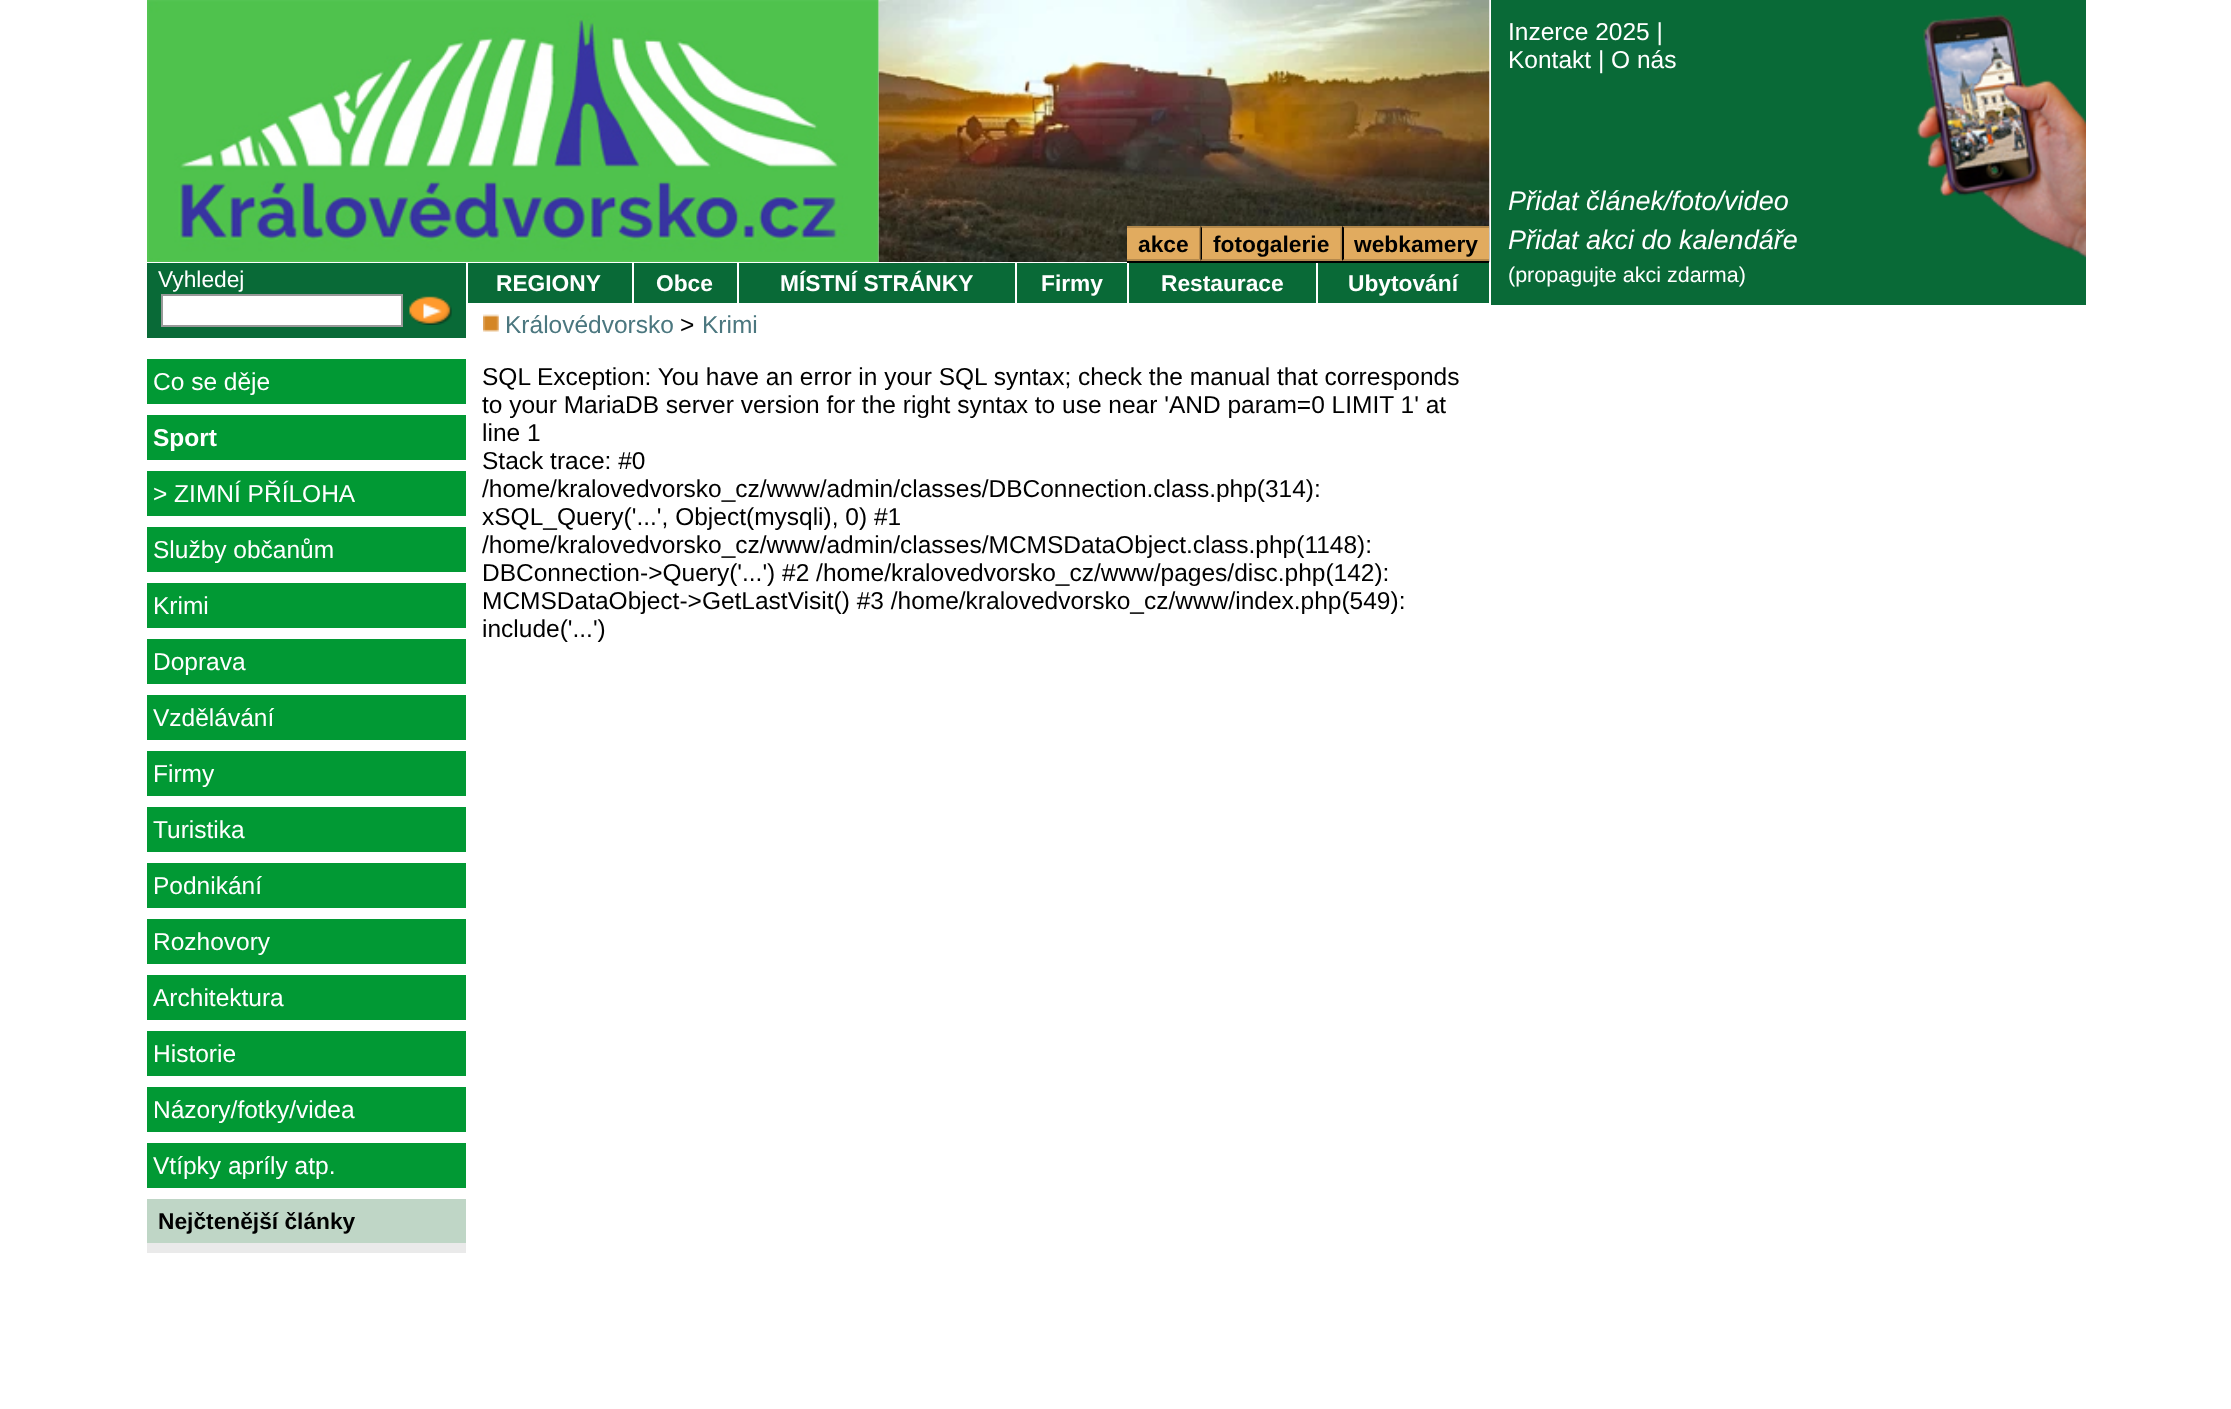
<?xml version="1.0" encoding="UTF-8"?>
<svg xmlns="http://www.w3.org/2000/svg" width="2231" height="1409">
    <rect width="100%" height="100%" fill="#FFFFFF"/>
    <image x="878" y="0" width="612" height="262" href="img_03.png"/>
    <image x="147" y="0" width="732" height="262" href="img_01.png"/>
    <rect x="147" y="263" width="319" height="75" fill="#096A37"/>
    <text x="158" y="287" font-family="Liberation Sans" font-size="22.75" fill="#FFFFFF">Vyhledej</text>
    <rect x="162" y="295" width="240" height="31" fill="#FFFFFF" stroke="#999999" stroke-width="2"/>
    <image x="409" y="296" width="43" height="29" href="img_02.png"/>
    <rect x="147" y="359" width="319" height="45" fill="#019934"/>
    <text x="153" y="390" font-family="Liberation Sans" font-size="24.5" fill="#FFFFFF">Co se děje</text>
    <rect x="147" y="415" width="319" height="45" fill="#019934"/>
    <text x="153" y="446" font-family="Liberation Sans" font-size="24.5" font-weight="700" fill="#FFFFFF">Sport</text>
    <rect x="147" y="471" width="319" height="45" fill="#019934"/>
    <text x="153" y="502" font-family="Liberation Sans" font-size="24.5" fill="#FFFFFF">&gt; ZIMNÍ PŘÍLOHA</text>
    <rect x="147" y="527" width="319" height="45" fill="#019934"/>
    <text x="153" y="558" font-family="Liberation Sans" font-size="24.5" fill="#FFFFFF">Služby občanům</text>
    <rect x="147" y="583" width="319" height="45" fill="#019934"/>
    <text x="153" y="614" font-family="Liberation Sans" font-size="24.5" fill="#FFFFFF">Krimi</text>
    <rect x="147" y="639" width="319" height="45" fill="#019934"/>
    <text x="153" y="670" font-family="Liberation Sans" font-size="24.5" fill="#FFFFFF">Doprava</text>
    <rect x="147" y="695" width="319" height="45" fill="#019934"/>
    <text x="153" y="726" font-family="Liberation Sans" font-size="24.5" fill="#FFFFFF">Vzdělávání</text>
    <rect x="147" y="751" width="319" height="45" fill="#019934"/>
    <text x="153" y="782" font-family="Liberation Sans" font-size="24.5" fill="#FFFFFF">Firmy</text>
    <rect x="147" y="807" width="319" height="45" fill="#019934"/>
    <text x="153" y="838" font-family="Liberation Sans" font-size="24.5" fill="#FFFFFF">Turistika</text>
    <rect x="147" y="863" width="319" height="45" fill="#019934"/>
    <text x="153" y="894" font-family="Liberation Sans" font-size="24.5" fill="#FFFFFF">Podnikání</text>
    <rect x="147" y="919" width="319" height="45" fill="#019934"/>
    <text x="153" y="950" font-family="Liberation Sans" font-size="24.5" fill="#FFFFFF">Rozhovory</text>
    <rect x="147" y="975" width="319" height="45" fill="#019934"/>
    <text x="153" y="1006" font-family="Liberation Sans" font-size="24.5" fill="#FFFFFF">Architektura</text>
    <rect x="147" y="1031" width="319" height="45" fill="#019934"/>
    <text x="153" y="1062" font-family="Liberation Sans" font-size="24.5" fill="#FFFFFF">Historie</text>
    <rect x="147" y="1087" width="319" height="45" fill="#019934"/>
    <text x="153" y="1118" font-family="Liberation Sans" font-size="24.5" fill="#FFFFFF">Názory/fotky/videa</text>
    <rect x="147" y="1143" width="319" height="45" fill="#019934"/>
    <text x="153" y="1174" font-family="Liberation Sans" font-size="24.5" fill="#FFFFFF">Vtípky apríly atp.</text>
    <rect x="147" y="1199" width="319" height="44" fill="#BFD6C6"/>
    <text x="158" y="1229" font-family="Liberation Sans" font-size="22.75" font-weight="700" fill="#000000">Nejčtenější články</text>
    <rect x="147" y="1243" width="319" height="10" fill="#EAEAEA"/>
    <rect x="1127" y="261" width="362" height="2" fill="#000000"/>
    <rect x="1127" y="226" width="362" height="35" fill="#E1AB5F"/>
    <path d="M 1127 226 H 1200 L 1199 228 H 1127 Z" fill="#B4894C"/>
    <path d="M 1200.5 226 V 261 L 1199 259 V 227.5 Z" fill="#000000" fill-opacity="0.2"/>
    <path d="M 1200 261 H 1127 V 259 H 1199 Z" fill="#B4894C"/>
    <text x="1138" y="252" font-family="Liberation Sans" font-size="22.75" font-weight="700" fill="#000000">akce</text>
    <path d="M 1200 226 H 1342 L 1340 228 H 1202 Z" fill="#B4894C"/>
    <path d="M 1342 226 V 261 L 1340.5 259 V 227.5 Z" fill="#000000" fill-opacity="0.2"/>
    <path d="M 1342 261 H 1200 L 1202 259 H 1340 Z" fill="#000000" fill-opacity="0.2"/>
    <path d="M 1200.5 261 V 226 L 1202 227.5 V 259 Z" fill="#000000"/>
    <text x="1213" y="252" font-family="Liberation Sans" font-size="22.75" font-weight="700" fill="#000000">fotogalerie</text>
    <path d="M 1342 226 H 1489 V 228 H 1344 Z" fill="#B4894C"/>
    <path d="M 1489 261 H 1342 L 1344 259 H 1489 Z" fill="#B4894C"/>
    <path d="M 1342 261 V 226 L 1344 227.5 V 259 Z" fill="#000000"/>
    <text x="1354" y="252" font-family="Liberation Sans" font-size="22.75" font-weight="700" fill="#000000">webkamery</text>
    <rect x="468" y="263" width="164" height="40" fill="#096A37"/>
    <text x="496" y="291" font-family="Liberation Sans" font-size="22.75" font-weight="700" fill="#FFFFFF">REGIONY</text>
    <rect x="634" y="263" width="103" height="40" fill="#096A37"/>
    <text x="656" y="291" font-family="Liberation Sans" font-size="22.75" font-weight="700" fill="#FFFFFF">Obce</text>
    <rect x="739" y="263" width="276" height="40" fill="#096A37"/>
    <text x="780" y="291" font-family="Liberation Sans" font-size="22.75" font-weight="700" fill="#FFFFFF">MÍSTNÍ STRÁNKY</text>
    <rect x="1017" y="263" width="110" height="40" fill="#096A37"/>
    <text x="1041" y="291" font-family="Liberation Sans" font-size="22.75" font-weight="700" fill="#FFFFFF">Firmy</text>
    <rect x="1129" y="263" width="187" height="40" fill="#096A37"/>
    <text x="1161" y="291" font-family="Liberation Sans" font-size="22.75" font-weight="700" fill="#FFFFFF">Restaurace</text>
    <rect x="1318" y="263" width="171" height="40" fill="#096A37"/>
    <text x="1348" y="291" font-family="Liberation Sans" font-size="22.75" font-weight="700" fill="#FFFFFF">Ubytování</text>
    <rect x="1491" y="0" width="595" height="305" fill="#096A37"/>
    <image x="1916" y="13" width="170" height="245" href="img_04.png"/>
    <text font-family="Liberation Sans" font-size="24.5" fill="#FFFFFF">
        <tspan x="1508" y="40">Inzerce 2025 |</tspan>
        <tspan x="1508" y="68">Kontakt | O nás</tspan>
    </text>
    <text font-family="Liberation Sans" font-size="27" font-style="italic" fill="#FFFFFF">
        <tspan x="1508" y="210">Přidat článek/foto/video</tspan>
        <tspan x="1508" y="249">Přidat akci do kalendáře</tspan>
    </text>
    <text x="1508" y="282" font-family="Liberation Sans" font-size="21.5" fill="#FFFFFF">(propagujte akci zdarma)</text>
    <image x="483" y="314" width="16" height="18" href="img_05.png"/>
    <text x="505" y="333" font-family="Liberation Sans" font-size="24.5" fill="#4B777F">Královédvorsko</text>
    <text x="680" y="333" font-family="Liberation Sans" font-size="24.5" fill="#000000">&gt;</text>
    <text x="702" y="333" font-family="Liberation Sans" font-size="24.5" fill="#4B777F">Krimi</text>
    <text font-family="Liberation Sans" font-size="24.5" fill="#000000">
        <tspan x="482" y="385">SQL Exception: You have an error in your SQL syntax; check the manual that corresponds</tspan>
        <tspan x="482" y="413">to your MariaDB server version for the right syntax to use near 'AND param=0 LIMIT 1' at</tspan>
        <tspan x="482" y="441">line 1</tspan>
        <tspan x="482" y="469">Stack trace: #0</tspan>
        <tspan x="482" y="497">/home/kralovedvorsko_cz/www/admin/classes/DBConnection.class.php(314):</tspan>
        <tspan x="482" y="525">xSQL_Query('...', Object(mysqli), 0) #1</tspan>
        <tspan x="482" y="553">/home/kralovedvorsko_cz/www/admin/classes/MCMSDataObject.class.php(1148):</tspan>
        <tspan x="482" y="581">DBConnection-&gt;Query('...') #2 /home/kralovedvorsko_cz/www/pages/disc.php(142):</tspan>
        <tspan x="482" y="609">MCMSDataObject-&gt;GetLastVisit() #3 /home/kralovedvorsko_cz/www/index.php(549):</tspan>
        <tspan x="482" y="637">include('...')</tspan>
    </text>
</svg>
